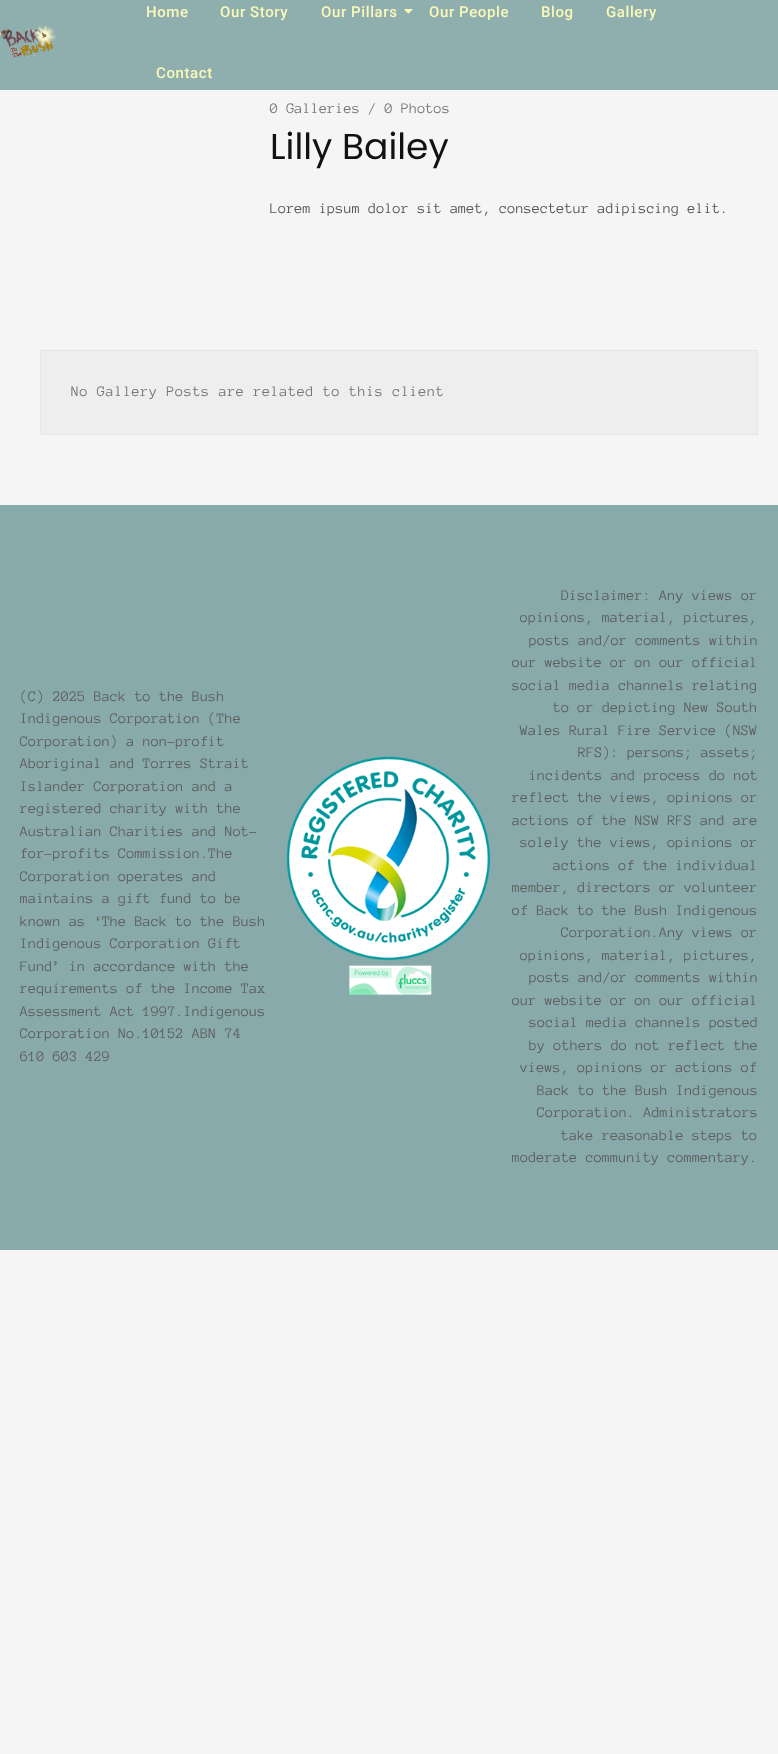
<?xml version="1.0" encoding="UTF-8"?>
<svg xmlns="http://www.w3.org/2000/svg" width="778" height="1754">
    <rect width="100%" height="100%" fill="#F5F5F5"/>
    <rect x="0" y="0" width="778" height="90" fill="#8FAFAF"/>
    <image x="0" y="25" width="57" height="34" href="img_01.png"/>
    <text x="146" y="17" font-family="Roboto" font-size="15" font-weight="500" letter-spacing="0.6" fill="#FBF8B8">Home</text>
    <text x="220" y="17" font-family="Roboto" font-size="15" font-weight="500" letter-spacing="0.6" fill="#FBF8B8">Our Story</text>
    <text x="321" y="17" font-family="Roboto" font-size="15" font-weight="500" letter-spacing="0.6" fill="#FBF8B8">Our Pillars</text>
    <image x="404" y="9" width="9" height="5" href="img_02.png"/>
    <text x="429" y="17" font-family="Roboto" font-size="15" font-weight="500" letter-spacing="0.6" fill="#FBF8B8">Our People</text>
    <text x="541" y="17" font-family="Roboto" font-size="15" font-weight="500" letter-spacing="0.6" fill="#FBF8B8">Blog</text>
    <text x="606" y="17" font-family="Roboto" font-size="15" font-weight="500" letter-spacing="0.6" fill="#FBF8B8">Gallery</text>
    <text x="156" y="78" font-family="Roboto" font-size="15" font-weight="500" letter-spacing="0.6" fill="#FBF8B8">Contact</text>
    <text x="270" y="113" font-family="Anonymous Pro" font-size="15" fill="#777777">0 Galleries / 0 Photos</text>
    <text x="270" y="159" font-family="Poppins" font-size="36" fill="#111111">Lilly Bailey</text>
    <text x="270" y="213" font-family="Anonymous Pro" font-size="15" fill="#555555">Lorem ipsum dolor sit amet, consectetur adipiscing elit.</text>
    <rect x="40.5" y="350.5" width="717" height="84" fill="#EEEEEE" stroke="#E5E5E5"/>
    <text x="71" y="396" font-family="Anonymous Pro" font-size="15" letter-spacing="0.5" fill="#777777">No Gallery Posts are related to this client</text>
    <rect x="0" y="505" width="778" height="745" fill="#88AAAA"/>
    <text font-family="Anonymous Pro" font-size="15" fill="#5F5F5F">
        <tspan x="20" y="701">(C) 2025 Back to the Bush</tspan>
        <tspan x="20" y="723">Indigenous Corporation (The</tspan>
        <tspan x="20" y="746">Corporation) a non-profit</tspan>
        <tspan x="20" y="768">Aboriginal and Torres Strait</tspan>
        <tspan x="20" y="791">Islander Corporation and a</tspan>
        <tspan x="20" y="813">registered charity with the</tspan>
        <tspan x="20" y="836">Australian Charities and Not-</tspan>
        <tspan x="20" y="858">for-profits Commission.The</tspan>
        <tspan x="20" y="881">Corporation operates and</tspan>
        <tspan x="20" y="903">maintains a gift fund to be</tspan>
        <tspan x="20" y="926">known as ‘The Back to the Bush</tspan>
        <tspan x="20" y="948">Indigenous Corporation Gift</tspan>
        <tspan x="20" y="971">Fund’ in accordance with the</tspan>
        <tspan x="20" y="993">requirements of the Income Tax</tspan>
        <tspan x="20" y="1016">Assessment Act 1997.Indigenous</tspan>
        <tspan x="20" y="1038">Corporation No.10152 ABN 74</tspan>
        <tspan x="20" y="1061">610 603 429</tspan>
    </text>
    <image x="286" y="756" width="205" height="240" href="img_03.png"/>
    <text x="561" y="600" font-family="Anonymous Pro" font-size="15" fill="#5F5F5F">Disclaimer: Any views or</text>
    <text x="520" y="622" font-family="Anonymous Pro" font-size="15" fill="#5F5F5F">opinions, material, pictures,</text>
    <text x="529" y="645" font-family="Anonymous Pro" font-size="15" fill="#5F5F5F">posts and/or comments within</text>
    <text font-family="Anonymous Pro" font-size="15" fill="#5F5F5F">
        <tspan x="512" y="667">our website or on our official</tspan>
        <tspan x="512" y="690">social media channels relating</tspan>
    </text>
    <text x="553" y="712" font-family="Anonymous Pro" font-size="15" fill="#5F5F5F">to or depicting New South</text>
    <text x="520" y="735" font-family="Anonymous Pro" font-size="15" fill="#5F5F5F">Wales Rural Fire Service (NSW</text>
    <text x="578" y="757" font-family="Anonymous Pro" font-size="15" fill="#5F5F5F">RFS): persons; assets;</text>
    <text x="529" y="780" font-family="Anonymous Pro" font-size="15" fill="#5F5F5F">incidents and process do not</text>
    <text font-family="Anonymous Pro" font-size="15" fill="#5F5F5F">
        <tspan x="512" y="802">reflect the views, opinions or</tspan>
        <tspan x="512" y="825">actions of the NSW RFS and are</tspan>
    </text>
    <text x="520" y="847" font-family="Anonymous Pro" font-size="15" fill="#5F5F5F">solely the views, opinions or</text>
    <text x="553" y="870" font-family="Anonymous Pro" font-size="15" fill="#5F5F5F">actions of the individual</text>
    <text font-family="Anonymous Pro" font-size="15" fill="#5F5F5F">
        <tspan x="512" y="892">member, directors or volunteer</tspan>
        <tspan x="512" y="915">of Back to the Bush Indigenous</tspan>
    </text>
    <text x="561" y="937" font-family="Anonymous Pro" font-size="15" fill="#5F5F5F">Corporation.Any views or</text>
    <text x="520" y="960" font-family="Anonymous Pro" font-size="15" fill="#5F5F5F">opinions, material, pictures,</text>
    <text x="529" y="982" font-family="Anonymous Pro" font-size="15" fill="#5F5F5F">posts and/or comments within</text>
    <text x="512" y="1005" font-family="Anonymous Pro" font-size="15" fill="#5F5F5F">our website or on our official</text>
    <text font-family="Anonymous Pro" font-size="15" fill="#5F5F5F">
        <tspan x="529" y="1027">social media channels posted</tspan>
        <tspan x="529" y="1050">by others do not reflect the</tspan>
    </text>
    <text x="520" y="1072" font-family="Anonymous Pro" font-size="15" fill="#5F5F5F">views, opinions or actions of</text>
    <text font-family="Anonymous Pro" font-size="15" fill="#5F5F5F">
        <tspan x="537" y="1095">Back to the Bush Indigenous</tspan>
        <tspan x="537" y="1117">Corporation. Administrators</tspan>
    </text>
    <text x="561" y="1140" font-family="Anonymous Pro" font-size="15" fill="#5F5F5F">take reasonable steps to</text>
    <text x="512" y="1162" font-family="Anonymous Pro" font-size="15" fill="#5F5F5F">moderate community commentary.</text>
</svg>
